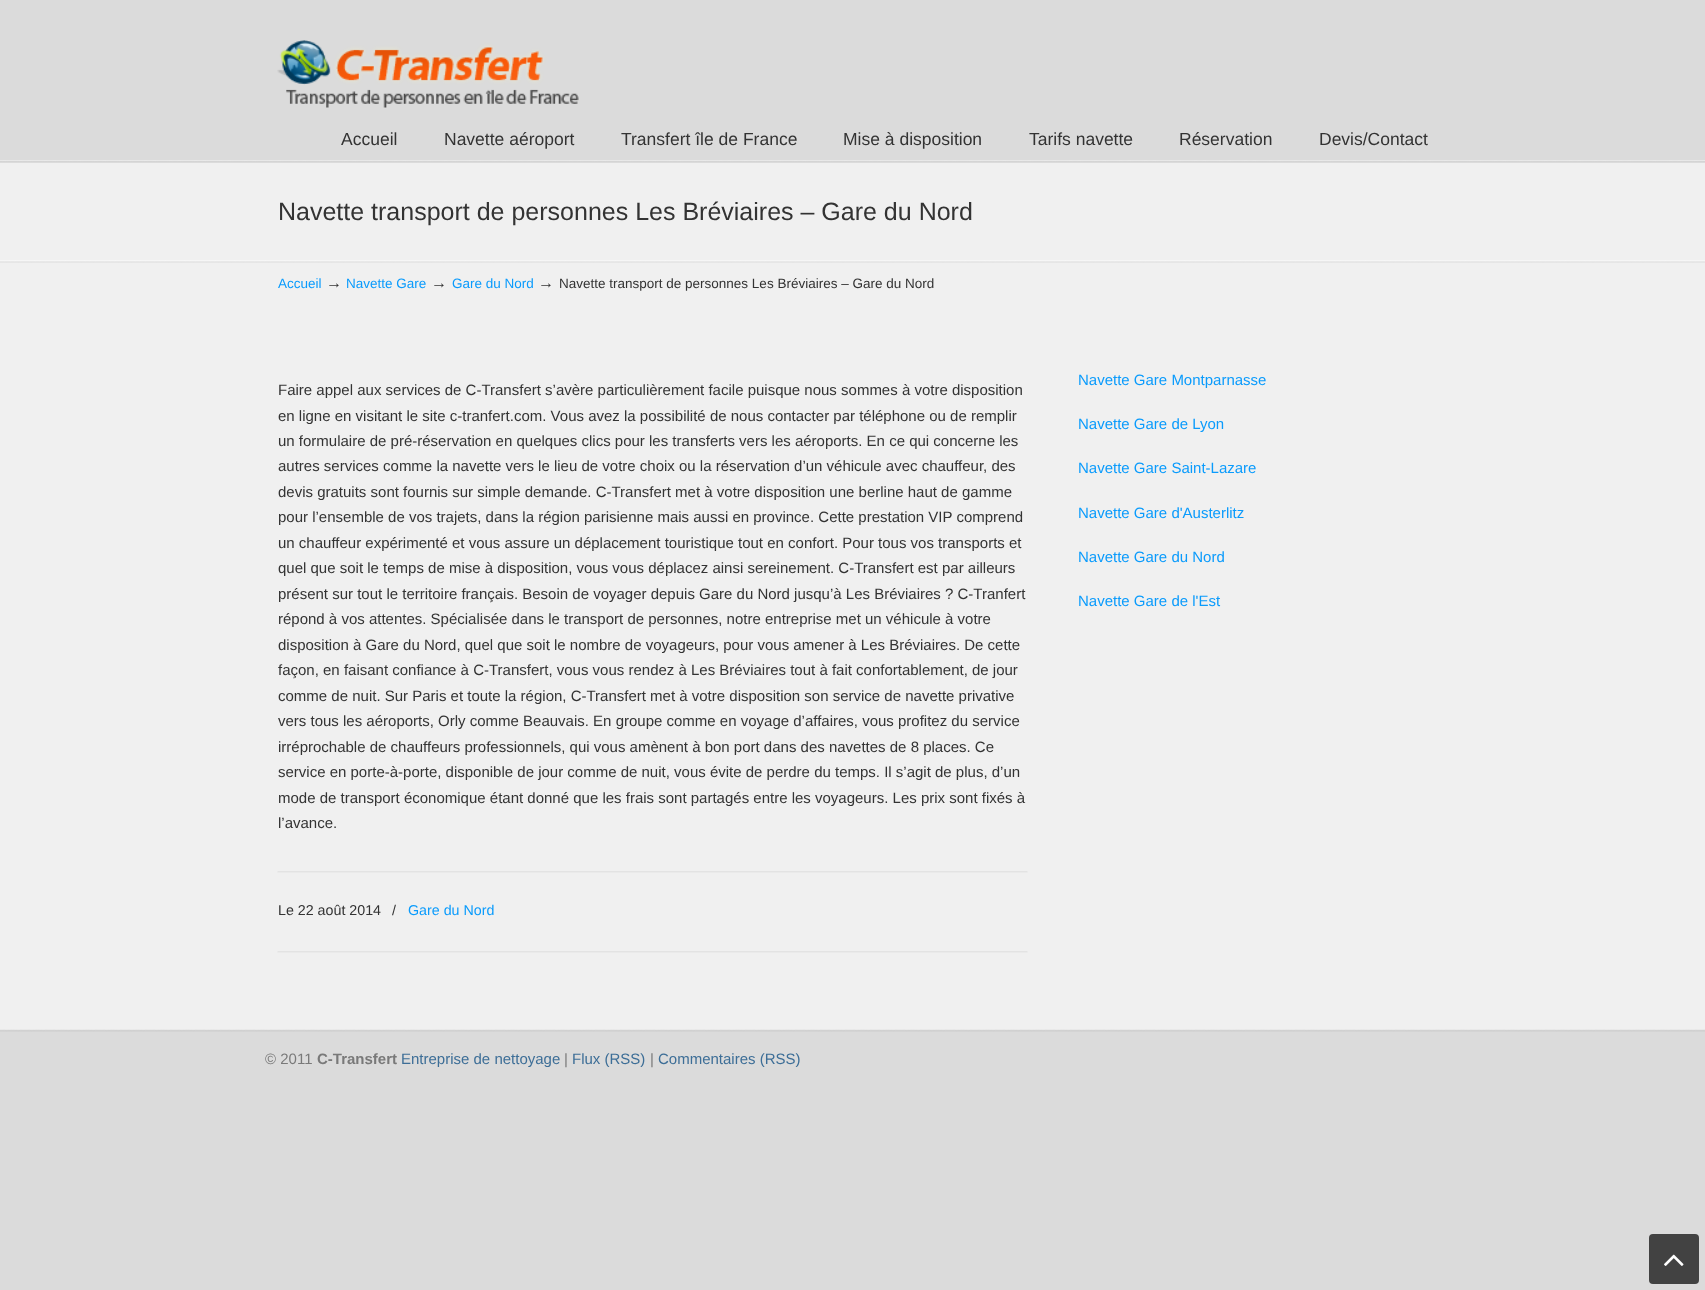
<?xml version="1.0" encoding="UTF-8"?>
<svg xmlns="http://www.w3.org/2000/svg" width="1705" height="1290">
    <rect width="100%" height="100%" fill="#DBDBDB"/>
    <image x="277" y="40" width="302" height="68" href="img_01.png"/>
    <text x="341" y="145" font-family="Liberation Sans" font-size="17.5" fill="#333333">Accueil</text>
    <text x="444" y="145" font-family="Liberation Sans" font-size="17.5" fill="#333333">Navette aéroport</text>
    <text x="621" y="145" font-family="Liberation Sans" font-size="17.5" fill="#333333">Transfert île de France</text>
    <text x="843" y="145" font-family="Liberation Sans" font-size="17.5" fill="#333333">Mise à disposition</text>
    <text x="1029" y="145" font-family="Liberation Sans" font-size="17.5" fill="#333333">Tarifs navette</text>
    <text x="1179" y="145" font-family="Liberation Sans" font-size="17.5" fill="#333333">Réservation</text>
    <text x="1319" y="145" font-family="Liberation Sans" font-size="17.5" fill="#333333">Devis/Contact</text>
    <image x="0" y="160" width="1705" height="2" href="img_02.png"/>
    <rect x="0" y="163" width="1705" height="866" fill="#F0F0F0"/>
    <text x="278" y="220" font-family="Liberation Sans" font-size="25" fill="#333333">Navette transport de personnes Les Bréviaires – Gare du Nord</text>
    <image x="0" y="260" width="1705" height="3" href="img_03.png"/>
    <text x="278" y="288" font-family="Liberation Sans" font-size="13.5" fill="#0A9BFC">Accueil</text>
    <text x="326" y="288" font-family="Liberation Sans" font-size="16" fill="#333333">→</text>
    <text x="346" y="288" font-family="Liberation Sans" font-size="13.5" fill="#0A9BFC">Navette Gare</text>
    <text x="431" y="288" font-family="Liberation Sans" font-size="16" fill="#333333">→</text>
    <text x="452" y="288" font-family="Liberation Sans" font-size="13.5" fill="#0A9BFC">Gare du Nord</text>
    <text x="538" y="288" font-family="Liberation Sans" font-size="16" fill="#333333">→</text>
    <text x="559" y="288" font-family="Liberation Sans" font-size="13.5" fill="#333333">Navette transport de personnes Les Bréviaires – Gare du Nord</text>
    <text font-family="Liberation Sans" font-size="15" fill="#333333">
        <tspan x="278" y="395">Faire appel aux services de C-Transfert s’avère particulièrement facile puisque nous sommes à votre disposition</tspan>
        <tspan x="278" y="421">en ligne en visitant le site c-tranfert.com. Vous avez la possibilité de nous contacter par téléphone ou de remplir</tspan>
        <tspan x="278" y="446">un formulaire de pré-réservation en quelques clics pour les transferts vers les aéroports. En ce qui concerne les</tspan>
        <tspan x="278" y="471">autres services comme la navette vers le lieu de votre choix ou la réservation d’un véhicule avec chauffeur, des</tspan>
        <tspan x="278" y="497">devis gratuits sont fournis sur simple demande. C-Transfert met à votre disposition une berline haut de gamme</tspan>
        <tspan x="278" y="522">pour l’ensemble de vos trajets, dans la région parisienne mais aussi en province. Cette prestation VIP comprend</tspan>
        <tspan x="278" y="548">un chauffeur expérimenté et vous assure un déplacement touristique tout en confort. Pour tous vos transports et</tspan>
        <tspan x="278" y="573">quel que soit le temps de mise à disposition, vous vous déplacez ainsi sereinement. C-Transfert est par ailleurs</tspan>
        <tspan x="278" y="599">présent sur tout le territoire français. Besoin de voyager depuis Gare du Nord jusqu’à Les Bréviaires ? C-Tranfert</tspan>
        <tspan x="278" y="624">répond à vos attentes. Spécialisée dans le transport de personnes, notre entreprise met un véhicule à votre</tspan>
        <tspan x="278" y="650">disposition à Gare du Nord, quel que soit le nombre de voyageurs, pour vous amener à Les Bréviaires. De cette</tspan>
        <tspan x="278" y="675">façon, en faisant confiance à C-Transfert, vous vous rendez à Les Bréviaires tout à fait confortablement, de jour</tspan>
        <tspan x="278" y="701">comme de nuit. Sur Paris et toute la région, C-Transfert met à votre disposition son service de navette privative</tspan>
        <tspan x="278" y="726">vers tous les aéroports, Orly comme Beauvais. En groupe comme en voyage d’affaires, vous profitez du service</tspan>
        <tspan x="278" y="752">irréprochable de chauffeurs professionnels, qui vous amènent à bon port dans des navettes de 8 places. Ce</tspan>
        <tspan x="278" y="777">service en porte-à-porte, disponible de jour comme de nuit, vous évite de perdre du temps. Il s’agit de plus, d’un</tspan>
        <tspan x="278" y="803">mode de transport économique étant donné que les frais sont partagés entre les voyageurs. Les prix sont fixés à</tspan>
        <tspan x="278" y="828">l’avance.</tspan>
    </text>
    <image x="277" y="871" width="751" height="2" href="img_04.png"/>
    <text x="278" y="915" font-family="Liberation Sans" font-size="14.25" fill="#333333">Le 22 août 2014</text>
    <text x="392" y="915" font-family="Liberation Sans" font-size="14.25" fill="#333333">/</text>
    <text x="408" y="915" font-family="Liberation Sans" font-size="14.25" fill="#0A9BFC">Gare du Nord</text>
    <image x="277" y="951" width="751" height="2" href="img_04.png"/>
    <text x="1078" y="385" font-family="Liberation Sans" font-size="15" fill="#0A9BFC">Navette Gare Montparnasse</text>
    <text x="1078" y="429" font-family="Liberation Sans" font-size="15" fill="#0A9BFC">Navette Gare de Lyon</text>
    <text x="1078" y="473" font-family="Liberation Sans" font-size="15" fill="#0A9BFC">Navette Gare Saint-Lazare</text>
    <text x="1078" y="518" font-family="Liberation Sans" font-size="15" fill="#0A9BFC">Navette Gare d'Austerlitz</text>
    <text x="1078" y="562" font-family="Liberation Sans" font-size="15" fill="#0A9BFC">Navette Gare du Nord</text>
    <text x="1078" y="606" font-family="Liberation Sans" font-size="15" fill="#0A9BFC">Navette Gare de l'Est</text>
    <image x="0" y="1029" width="1705" height="3" href="img_05.png"/>
    <text x="265" y="1064" font-family="Liberation Sans" font-size="15" fill="#797979">© 2011</text>
    <text x="317" y="1064" font-family="Liberation Sans" font-size="15" font-weight="700" fill="#797979">C-Transfert</text>
    <text x="401" y="1064" font-family="Liberation Sans" font-size="15" fill="#3D6E97">Entreprise de nettoyage</text>
    <text x="564" y="1064" font-family="Liberation Sans" font-size="15" fill="#797979">|</text>
    <text x="572" y="1064" font-family="Liberation Sans" font-size="15" fill="#3D6E97">Flux (RSS)</text>
    <text x="650" y="1064" font-family="Liberation Sans" font-size="15" fill="#797979">|</text>
    <text x="658" y="1064" font-family="Liberation Sans" font-size="15" fill="#3D6E97">Commentaires (RSS)</text>
    <rect x="1649" y="1234" width="50" height="50" rx="4" fill="#424242"/>
    <image x="1664" y="1254" width="20" height="12" href="img_06.png"/>
</svg>
